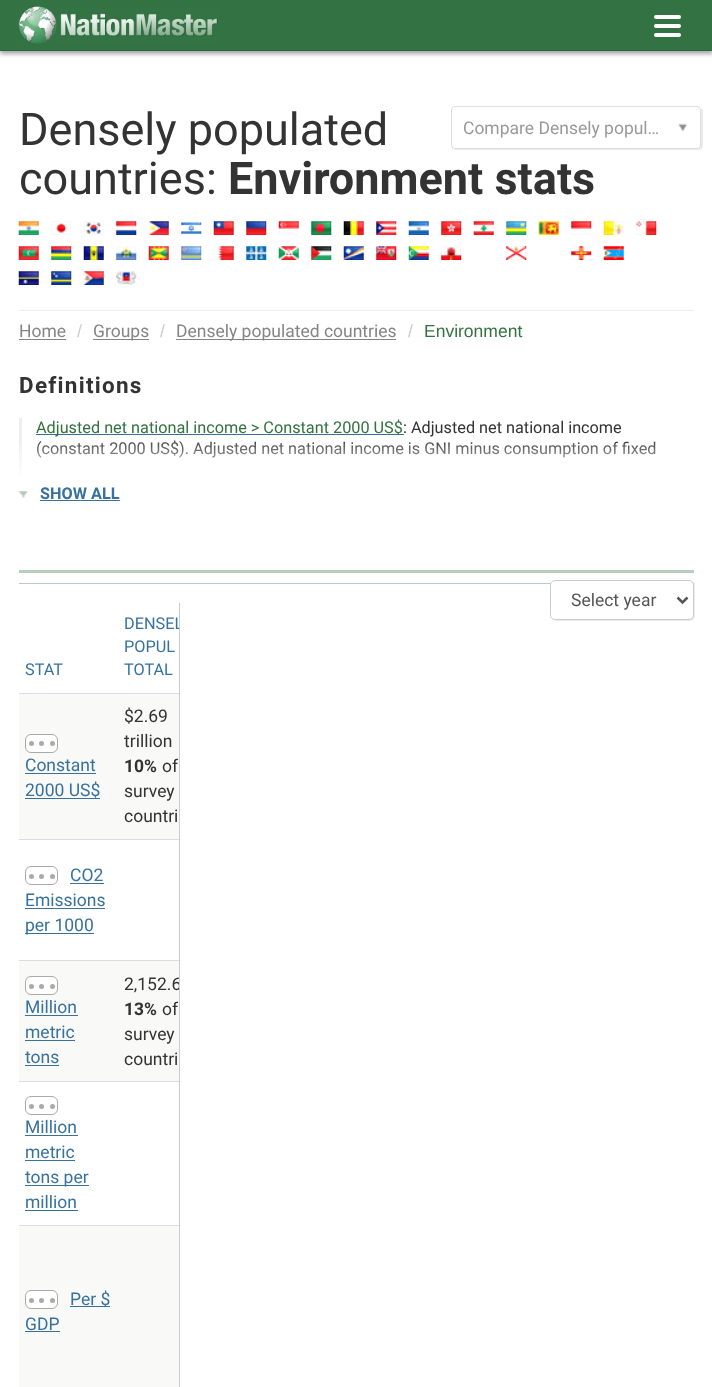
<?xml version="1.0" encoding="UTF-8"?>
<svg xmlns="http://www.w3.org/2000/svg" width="712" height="1387">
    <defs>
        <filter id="blur1" x="-50%" y="-200%" width="200%" height="500%"><feGaussianBlur stdDeviation="2"/></filter>
        <clipPath id="clip1"><path d="M 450 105 H 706 V 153 H 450 Z M 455 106 H 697 C 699 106 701 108 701 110 V 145 C 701 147 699 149 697 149 H 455 C 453 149 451 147 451 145 V 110 C 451 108 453 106 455 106 Z" clip-rule="evenodd"/></clipPath>
        <filter id="blur2" x="-50%" y="-200%" width="200%" height="500%"><feGaussianBlur stdDeviation="0.5"/></filter>
        <clipPath id="clip2"><rect x="118" y="603" width="61" height="88"/></clipPath>
        <clipPath id="clip3"><rect x="118" y="961" width="61" height="120"/></clipPath>
    </defs>
    <rect width="100%" height="100%" fill="#FFFFFF"/>
    <rect x="0" y="3" width="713" height="51" fill="#000000" fill-opacity="0.35" filter="url(#blur1)"/>
    <rect x="0" y="0" width="712" height="50" fill="#337242"/>
    <rect x="0" y="50" width="712" height="1" fill="#2C653D"/>
    <image x="18" y="6" width="200" height="38" href="img_01.png"/>
    <rect x="654" y="15" width="27" height="4" rx="2" fill="#FFFFFF"/>
    <rect x="654" y="24" width="27" height="4" rx="2" fill="#FFFFFF"/>
    <rect x="654" y="33" width="27" height="4" rx="2" fill="#FFFFFF"/>
    <rect x="19" y="310" width="675" height="1" fill="#EEEEEE"/>
    <text font-family="Roboto" font-size="45" fill="#333333">
        <tspan x="19" y="145">Densely populated</tspan>
        <tspan x="19" y="194">countries:</tspan>
    </text>
    <text x="228" y="194" font-family="Roboto" font-size="45" font-weight="700" fill="#333333">Environment stats</text>
    <image x="18" y="221" width="21" height="14" href="img_02.png"/>
    <image x="51" y="221" width="20" height="14" href="img_03.png"/>
    <image x="84" y="221" width="20" height="14" href="img_04.png"/>
    <image x="116" y="221" width="21" height="14" href="img_05.png"/>
    <image x="148" y="221" width="21" height="14" href="img_06.png"/>
    <image x="181" y="221" width="21" height="14" href="img_07.png"/>
    <image x="213" y="221" width="21" height="14" href="img_08.png"/>
    <image x="246" y="221" width="21" height="14" href="img_09.png"/>
    <image x="278" y="221" width="21" height="14" href="img_10.png"/>
    <image x="311" y="221" width="21" height="14" href="img_11.png"/>
    <image x="343" y="221" width="21" height="14" href="img_12.png"/>
    <image x="376" y="221" width="21" height="14" href="img_13.png"/>
    <image x="408" y="221" width="21" height="14" href="img_14.png"/>
    <image x="441" y="221" width="21" height="14" href="img_15.png"/>
    <image x="473" y="221" width="21" height="14" href="img_16.png"/>
    <image x="506" y="221" width="21" height="14" href="img_17.png"/>
    <image x="538" y="221" width="21" height="14" href="img_18.png"/>
    <image x="571" y="221" width="21" height="14" href="img_19.png"/>
    <image x="603" y="221" width="21" height="14" href="img_20.png"/>
    <image x="636" y="221" width="21" height="14" href="img_21.png"/>
    <image x="18" y="246" width="21" height="14" href="img_22.png"/>
    <image x="51" y="246" width="21" height="14" href="img_23.png"/>
    <image x="83" y="246" width="21" height="14" href="img_24.png"/>
    <image x="116" y="246" width="21" height="14" href="img_25.png"/>
    <image x="148" y="246" width="21" height="14" href="img_26.png"/>
    <image x="181" y="246" width="21" height="14" href="img_27.png"/>
    <image x="214" y="246" width="20" height="14" href="img_28.png"/>
    <image x="246" y="246" width="21" height="14" href="img_29.png"/>
    <image x="278" y="246" width="21" height="14" href="img_30.png"/>
    <image x="311" y="246" width="21" height="14" href="img_31.png"/>
    <image x="343" y="246" width="21" height="14" href="img_32.png"/>
    <image x="376" y="246" width="21" height="14" href="img_33.png"/>
    <image x="408" y="246" width="21" height="14" href="img_34.png"/>
    <image x="441" y="246" width="21" height="14" href="img_35.png"/>
    <image x="506" y="246" width="21" height="14" href="img_36.png"/>
    <image x="571" y="246" width="21" height="14" href="img_37.png"/>
    <image x="603" y="246" width="21" height="14" href="img_38.png"/>
    <image x="18" y="271" width="21" height="14" href="img_39.png"/>
    <image x="51" y="271" width="21" height="14" href="img_40.png"/>
    <image x="83" y="271" width="21" height="14" href="img_41.png"/>
    <image x="116" y="271" width="21" height="14" href="img_42.png"/>
    <g clip-path="url(#clip1)">
        <rect x="453" y="108" width="250" height="42" rx="4" fill="#000000" fill-opacity="0.08" filter="url(#blur2)"/>
    </g>
    <rect x="451.5" y="106.5" width="249" height="42" rx="3.5" fill="none" stroke="#DDDDDD"/>
    <text x="463" y="134" font-family="Roboto" font-size="17.5" fill="#999999">Compare Densely popul…</text>
    <image x="678" y="123" width="10" height="9" href="img_43.png"/>
    <text x="19" y="337" font-family="Roboto" font-size="17.5" fill="#858585">Home</text>
    <rect x="19" y="339" width="47" height="1" fill="#858585"/>
    <text x="77" y="337" font-family="Liberation Sans" font-size="17.5" fill="#CCCCCC">/</text>
    <rect x="93" y="339" width="56" height="1" fill="#858585"/>
    <text x="93" y="337" font-family="Roboto" font-size="17.5" fill="#858585">Groups</text>
    <text x="160" y="337" font-family="Liberation Sans" font-size="17.5" fill="#CCCCCC">/</text>
    <rect x="176" y="339" width="220" height="1" fill="#858585"/>
    <text x="176" y="337" font-family="Roboto" font-size="17.5" fill="#858585">Densely populated countries</text>
    <text x="408" y="337" font-family="Liberation Sans" font-size="17.5" fill="#CCCCCC">/</text>
    <text x="424" y="337" font-family="Liberation Sans" font-size="17.5" fill="#33723F">Environment</text>
    <text x="19" y="393" font-family="Roboto" font-size="22.5" font-weight="700" letter-spacing="1.25" fill="#333333">Definitions</text>
    <rect x="19" y="418" width="3" height="62" fill="#EEEEEE"/>
    <rect x="36" y="434" width="368" height="1" fill="#37729F"/>
    <text x="36" y="433" font-family="Roboto" font-size="16.25" fill="#33723F">Adjusted net national income &gt; Constant 2000 US$</text>
    <text x="403" y="433" font-family="Roboto" font-size="16.25" fill="#333333">: Adjusted net national income</text>
    <text x="36" y="454" font-family="Roboto" font-size="16.25" fill="#333333">(constant 2000 US$). Adjusted net national income is GNI minus consumption of fixed</text>
    <image x="19" y="442" width="637" height="38" href="img_44.png"/>
    <image x="18" y="491" width="10" height="7" href="img_45.png"/>
    <text x="40" y="499" font-family="Roboto" font-size="16.25" font-weight="700" fill="#37729F">SHOW ALL</text>
    <rect x="40" y="500" width="80" height="1" fill="#37729F"/>
    <rect x="19" y="570" width="675" height="3" fill="#B9CDBD"/>
    <rect x="19" y="583" width="675" height="1" fill="#B9CDBD"/>
    <rect x="551" y="581" width="144" height="40" rx="5" fill="#000000" fill-opacity="0.08" filter="url(#blur2)"/>
    <rect x="550.5" y="580.5" width="143" height="39" rx="4.5" fill="#FFFFFF" stroke="#CCCCCC"/>
    <path d="M 677.5 597.5 L 682.5 602.5 L 687.5 597.5" fill="none" stroke="#555555" stroke-width="2.5"/>
    <text x="571" y="606" font-family="Roboto" font-size="17.5" fill="#555555">Select year</text>
    <rect x="179" y="603" width="1" height="784" fill="#CCCCCC"/>
    <text x="25" y="675" font-family="Roboto" font-size="16.25" fill="#37729F">STAT</text>
    <g clip-path="url(#clip2)">
        <text x="124" y="629" font-family="Roboto" font-size="16.25" fill="#37729F">DENSEL</text>
    </g>
    <text font-family="Roboto" font-size="16.25" fill="#37729F">
        <tspan x="124" y="652">POPUL</tspan>
        <tspan x="124" y="675">TOTAL</tspan>
    </text>
    <rect x="19" y="694" width="160" height="145" fill="#F9F9F7"/>
    <rect x="25.5" y="734.5" width="32" height="18" rx="5.5" fill="#FFFFFF" stroke="#AAAAAA"/>
    <circle cx="31.5" cy="743.5" r="2.5" fill="#AAAAAA"/>
    <circle cx="41.5" cy="743.5" r="2.5" fill="#AAAAAA"/>
    <circle cx="52.5" cy="743.5" r="2.5" fill="#AAAAAA"/>
    <text x="25" y="771" font-family="Roboto" font-size="17.5" fill="#37729F">Constant</text>
    <rect x="25" y="773" width="71" height="1" fill="#37729F"/>
    <text x="25" y="796" font-family="Roboto" font-size="17.5" fill="#37729F">2000 US$</text>
    <rect x="25" y="798" width="75" height="1" fill="#37729F"/>
    <rect x="19" y="693" width="160" height="1" fill="#DDDDDD"/>
    <text font-family="Roboto" font-size="17.5" fill="#333333">
        <tspan x="124" y="722">$2.69</tspan>
        <tspan x="124" y="747">trillion</tspan>
    </text>
    <text x="124" y="772" font-family="Roboto" font-size="17.5" font-weight="700" fill="#333333">10%</text>
    <text x="162" y="772" font-family="Roboto" font-size="17.5" fill="#333333">of</text>
    <text font-family="Roboto" font-size="17.5" fill="#333333">
        <tspan x="124" y="797">survey</tspan>
        <tspan x="124" y="822">countri</tspan>
    </text>
    <rect x="19" y="839" width="160" height="1" fill="#DDDDDD"/>
    <rect x="25.5" y="866.5" width="32" height="18" rx="5.5" fill="none" stroke="#AAAAAA"/>
    <circle cx="31.5" cy="876.5" r="2.5" fill="#AAAAAA"/>
    <circle cx="41.5" cy="876.5" r="2.5" fill="#AAAAAA"/>
    <circle cx="52.5" cy="876.5" r="2.5" fill="#AAAAAA"/>
    <text x="70" y="881" font-family="Roboto" font-size="17.5" fill="#37729F">CO2</text>
    <rect x="70" y="883" width="34" height="1" fill="#37729F"/>
    <text x="25" y="906" font-family="Roboto" font-size="17.5" fill="#37729F">Emissions</text>
    <rect x="25" y="908" width="80" height="1" fill="#37729F"/>
    <rect x="25" y="933" width="69" height="1" fill="#37729F"/>
    <text x="25" y="931" font-family="Roboto" font-size="17.5" fill="#37729F">per 1000</text>
    <rect x="19" y="961" width="160" height="120" fill="#F9F9F7"/>
    <rect x="25.5" y="976.5" width="32" height="18" rx="5.5" fill="#FFFFFF" stroke="#AAAAAA"/>
    <circle cx="31.5" cy="986.5" r="2.5" fill="#AAAAAA"/>
    <circle cx="41.5" cy="986.5" r="2.5" fill="#AAAAAA"/>
    <circle cx="52.5" cy="986.5" r="2.5" fill="#AAAAAA"/>
    <text x="25" y="1013" font-family="Roboto" font-size="17.5" fill="#37729F">Million</text>
    <rect x="25" y="1015" width="53" height="1" fill="#37729F"/>
    <text x="25" y="1038" font-family="Roboto" font-size="17.5" fill="#37729F">metric</text>
    <rect x="25" y="1040" width="50" height="1" fill="#37729F"/>
    <text x="25" y="1063" font-family="Roboto" font-size="17.5" fill="#37729F">tons</text>
    <rect x="25" y="1065" width="34" height="1" fill="#37729F"/>
    <rect x="19" y="960" width="160" height="1" fill="#DDDDDD"/>
    <g clip-path="url(#clip3)">
        <text x="124" y="990" font-family="Roboto" font-size="17.5" fill="#333333">2,152.6</text>
    </g>
    <text x="124" y="1015" font-family="Roboto" font-size="17.5" font-weight="700" fill="#333333">13%</text>
    <text x="162" y="1015" font-family="Roboto" font-size="17.5" fill="#333333">of</text>
    <text font-family="Roboto" font-size="17.5" fill="#333333">
        <tspan x="124" y="1040">survey</tspan>
        <tspan x="124" y="1065">countri</tspan>
    </text>
    <rect x="19" y="1081" width="160" height="1" fill="#DDDDDD"/>
    <rect x="25.5" y="1096.5" width="32" height="18" rx="5.5" fill="none" stroke="#AAAAAA"/>
    <circle cx="31.5" cy="1106.5" r="2.5" fill="#AAAAAA"/>
    <circle cx="41.5" cy="1106.5" r="2.5" fill="#AAAAAA"/>
    <circle cx="52.5" cy="1106.5" r="2.5" fill="#AAAAAA"/>
    <text x="25" y="1133" font-family="Roboto" font-size="17.5" fill="#37729F">Million</text>
    <rect x="25" y="1135" width="53" height="1" fill="#37729F"/>
    <text x="25" y="1158" font-family="Roboto" font-size="17.5" fill="#37729F">metric</text>
    <rect x="25" y="1160" width="50" height="1" fill="#37729F"/>
    <rect x="25" y="1185" width="64" height="1" fill="#37729F"/>
    <text font-family="Roboto" font-size="17.5" fill="#37729F">
        <tspan x="25" y="1183">tons per</tspan>
        <tspan x="25" y="1208">million</tspan>
    </text>
    <rect x="25" y="1210" width="53" height="1" fill="#37729F"/>
    <rect x="19" y="1226" width="160" height="161" fill="#F9F9F7"/>
    <rect x="19" y="1225" width="160" height="1" fill="#DDDDDD"/>
    <rect x="25.5" y="1290.5" width="32" height="18" rx="5.5" fill="#FFFFFF" stroke="#AAAAAA"/>
    <circle cx="31.5" cy="1300.5" r="2.5" fill="#AAAAAA"/>
    <circle cx="41.5" cy="1300.5" r="2.5" fill="#AAAAAA"/>
    <circle cx="52.5" cy="1300.5" r="2.5" fill="#AAAAAA"/>
    <rect x="70" y="1306" width="40" height="1" fill="#37729F"/>
    <text x="70" y="1305" font-family="Roboto" font-size="17.5" fill="#37729F">Per $</text>
    <text x="25" y="1330" font-family="Roboto" font-size="17.5" fill="#37729F">GDP</text>
    <rect x="25" y="1331" width="35" height="1" fill="#37729F"/>
</svg>
